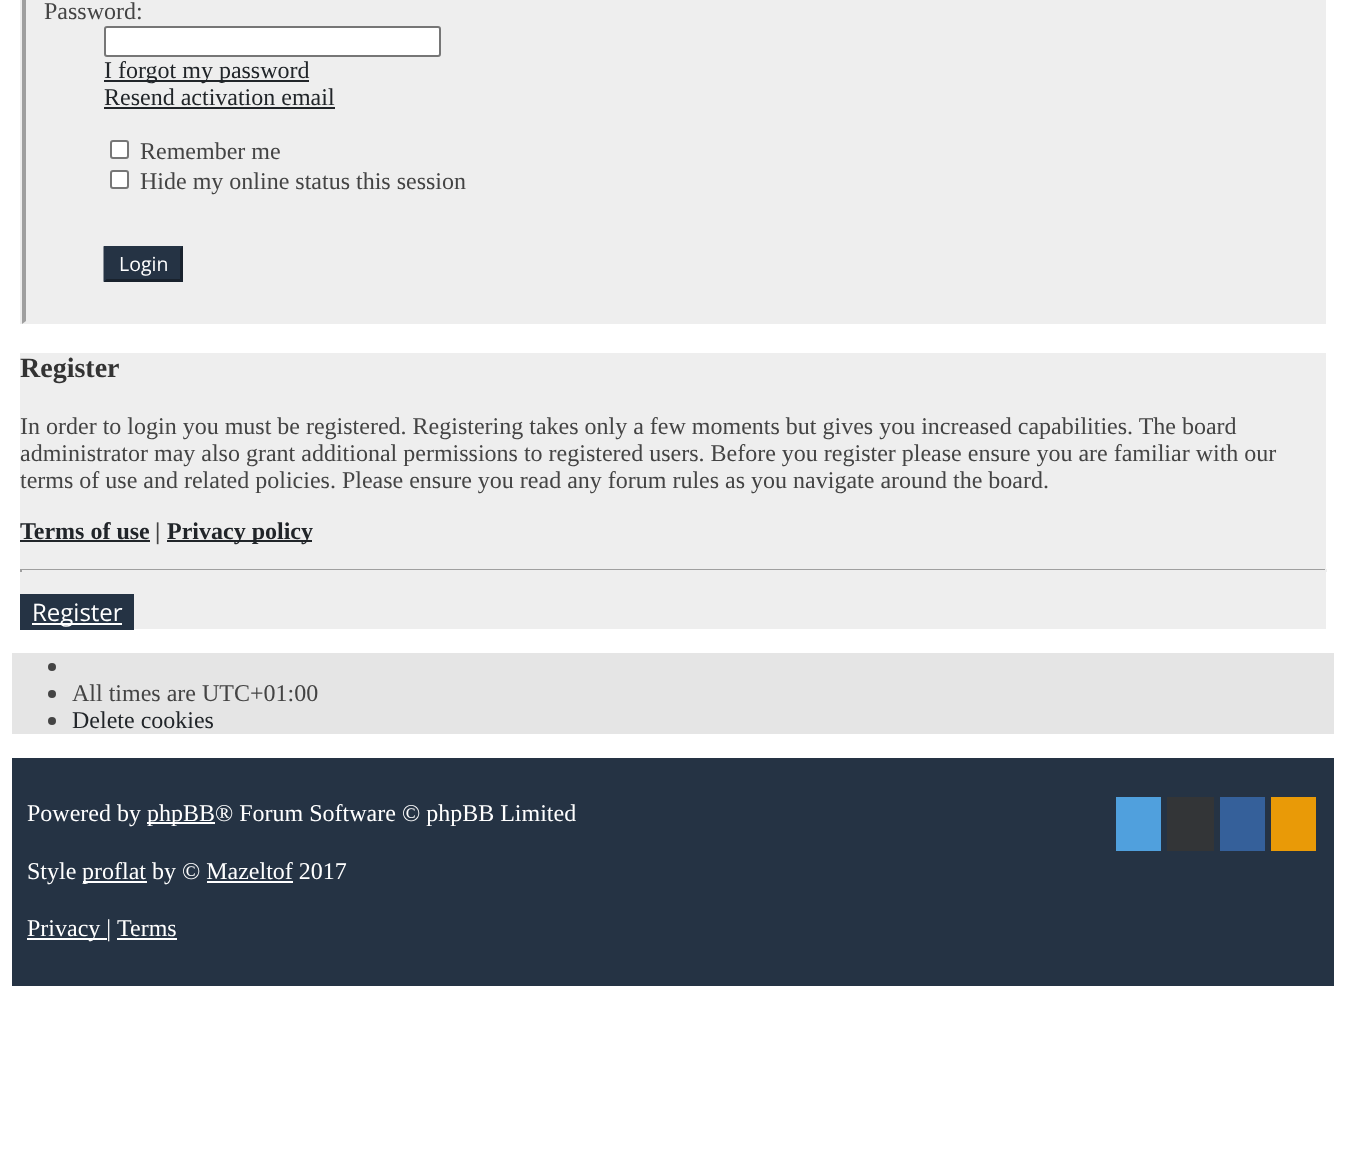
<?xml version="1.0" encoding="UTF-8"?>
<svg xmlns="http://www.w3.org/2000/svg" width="1345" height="1167">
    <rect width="100%" height="100%" fill="#FFFFFF"/>
    <rect x="20" y="0" width="1306" height="324" fill="#EEEEEE"/>
    <path d="M 22 324 V -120 L 26 -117 V 321 Z" fill="#9F9F9F"/>
    <text x="44" y="19" font-family="Liberation Serif" font-size="24" fill="#444444">Password:</text>
    <rect x="105" y="27" width="335" height="29" rx="2" fill="#FFFFFF" stroke="#767676" stroke-width="2"/>
    <rect x="104" y="80" width="205" height="2" fill="#212529"/>
    <text font-family="Liberation Serif" font-size="24" fill="#212529">
        <tspan x="104" y="78">I forgot my password</tspan>
        <tspan x="104" y="105">Resend activation email</tspan>
    </text>
    <rect x="104" y="107" width="231" height="2" fill="#212529"/>
    <rect x="111" y="141" width="17" height="17" rx="2" fill="#FFFFFF" stroke="#767676" stroke-width="2"/>
    <text x="140" y="159" font-family="Liberation Serif" font-size="24" fill="#444444">Remember me</text>
    <rect x="111" y="171" width="17" height="17" rx="2" fill="#FFFFFF" stroke="#767676" stroke-width="2"/>
    <text x="140" y="189" font-family="Liberation Serif" font-size="24" fill="#444444">Hide my online status this session</text>
    <rect x="104" y="246" width="79" height="36" fill="#253344"/>
    <path d="M 183 246 V 282 L 180 279 V 249 Z" fill="#19222D"/>
    <path d="M 183 282 H 104 L 106 279 H 180 Z" fill="#19222D"/>
    <path d="M 103.5 282 V 246 L 106.5 249 V 279 Z" fill="#253344"/>
    <text x="119" y="271" font-family="Open Sans" font-size="19.5" fill="#FFFFFF">Login</text>
    <rect x="20" y="353" width="1306" height="276" fill="#EEEEEE"/>
    <text x="20" y="377" font-family="Liberation Serif" font-size="28" font-weight="700" fill="#333333">Register</text>
    <text font-family="Liberation Serif" font-size="24" fill="#444444">
        <tspan x="20" y="434">In order to login you must be registered. Registering takes only a few moments but gives you increased capabilities. The board</tspan>
        <tspan x="20" y="461">administrator may also grant additional permissions to registered users. Before you register please ensure you are familiar with our</tspan>
        <tspan x="20" y="488">terms of use and related policies. Please ensure you read any forum rules as you navigate around the board.</tspan>
    </text>
    <text x="20" y="539" font-family="Liberation Serif" font-size="24" font-weight="700" fill="#212529">Terms of use</text>
    <rect x="20" y="540" width="130" height="2" fill="#212529"/>
    <text x="155" y="539" font-family="Liberation Serif" font-size="24" font-weight="700" fill="#444444">|</text>
    <rect x="167" y="540" width="145" height="2" fill="#212529"/>
    <text x="167" y="539" font-family="Liberation Serif" font-size="24" font-weight="700" fill="#212529">Privacy policy</text>
    <rect x="20" y="569" width="1306" height="1" fill="#9F9F9F"/>
    <rect x="1325" y="569" width="2" height="3" fill="#EEEEEE"/>
    <rect x="20" y="569" width="2" height="3" fill="#9F9F9F"/>
    <rect x="20" y="594" width="114" height="36" fill="#253344"/>
    <rect x="32" y="623" width="90" height="2" fill="#FFFFFF"/>
    <text x="32" y="621" font-family="Open Sans" font-size="24" fill="#FFFFFF">Register</text>
    <rect x="12" y="653" width="1322" height="81" fill="#E5E5E5"/>
    <circle cx="52" cy="667" r="4" fill="#444444"/>
    <circle cx="52" cy="694" r="4" fill="#444444"/>
    <text x="72" y="701" font-family="Liberation Serif" font-size="24" fill="#444444">All times are UTC+01:00</text>
    <circle cx="52" cy="721" r="4" fill="#444444"/>
    <text x="72" y="728" font-family="Liberation Serif" font-size="24" fill="#212529">Delete cookies</text>
    <rect x="12" y="758" width="1322" height="228" fill="#253344"/>
    <text x="27" y="821" font-family="Liberation Serif" font-size="24" fill="#FFFFFF">Powered by</text>
    <rect x="147" y="822" width="68" height="2" fill="#FFFFFF"/>
    <text x="147" y="821" font-family="Liberation Serif" font-size="24" fill="#FFFFFF">phpBB® Forum Software © phpBB Limited</text>
    <text x="27" y="879" font-family="Liberation Serif" font-size="24" fill="#FFFFFF">Style</text>
    <rect x="83" y="881" width="64" height="2" fill="#FFFFFF"/>
    <text x="82" y="879" font-family="Liberation Serif" font-size="24" fill="#FFFFFF">proflat by © Mazeltof 2017</text>
    <rect x="207" y="881" width="86" height="2" fill="#FFFFFF"/>
    <rect x="27" y="938" width="80" height="2" fill="#FFFFFF"/>
    <text x="27" y="936" font-family="Liberation Serif" font-size="24" fill="#FFFFFF">Privacy |</text>
    <text x="117" y="936" font-family="Liberation Serif" font-size="24" fill="#FFFFFF">Terms</text>
    <rect x="117" y="938" width="60" height="2" fill="#FFFFFF"/>
    <rect x="1116" y="797" width="45" height="54" fill="#50A0DD"/>
    <rect x="1167" y="797" width="47" height="54" fill="#333537"/>
    <rect x="1220" y="797" width="45" height="54" fill="#35609A"/>
    <rect x="1271" y="797" width="45" height="54" fill="#E99A07"/>
</svg>
